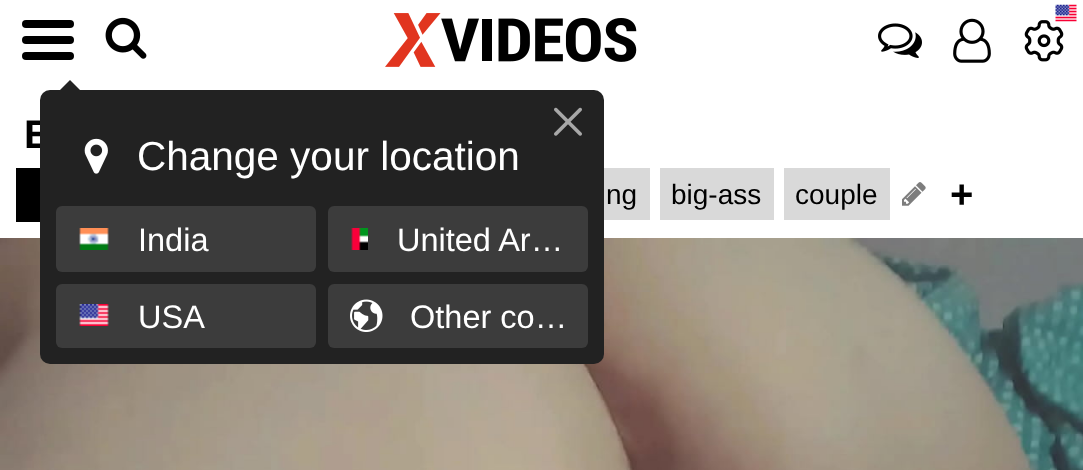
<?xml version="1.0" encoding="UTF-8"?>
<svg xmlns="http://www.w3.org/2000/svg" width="1083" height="470">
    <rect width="100%" height="100%" fill="#FFFFFF"/>
    <text x="24" y="148" font-family="Liberation Sans" font-size="40" font-weight="700" fill="#000000">E</text>
    <rect x="16" y="168" width="24" height="54" fill="#000000"/>
    <rect x="604" y="168" width="46" height="52" fill="#D9D9D9"/>
    <text x="606" y="204" font-family="Liberation Sans" font-size="28" fill="#000000">ng</text>
    <rect x="660" y="168" width="114" height="52" fill="#D9D9D9"/>
    <text x="671" y="204" font-family="Liberation Sans" font-size="28" fill="#000000">big-ass</text>
    <rect x="784" y="168" width="106" height="52" fill="#D9D9D9"/>
    <text x="795" y="204" font-family="Liberation Sans" font-size="28" fill="#000000">couple</text>
    <image x="902" y="182" width="24" height="24" href="img_01.png"/>
    <text x="950" y="208" font-family="Liberation Sans" font-size="40" font-weight="700" fill="#000000">+</text>
    <image x="0" y="238" width="1083" height="232" href="img_02.png"/>
    <rect x="22" y="20" width="52" height="8" rx="4" fill="#000000"/>
    <rect x="22" y="36" width="52" height="8" rx="4" fill="#000000"/>
    <rect x="22" y="52" width="52" height="8" rx="4" fill="#000000"/>
    <image x="105" y="17" width="42" height="42" href="img_03.png"/>
    <image x="385" y="13" width="252" height="54" href="img_04.png"/>
    <image x="878" y="23" width="44" height="35" href="img_05.png"/>
    <image x="953" y="18" width="38" height="45" href="img_06.png"/>
    <image x="1024" y="20" width="40" height="42" href="img_08.png"/>
    <image x="1055" y="4" width="22" height="18" href="img_07.png"/>
    <path d="M 80 90 H 60 L 70 80 Z" fill="#222222"/>
    <rect x="40" y="90" width="564" height="274" rx="10" fill="#222222"/>
    <image x="554" y="107" width="28" height="29" href="img_09.png"/>
    <image x="84" y="138" width="24" height="36" href="img_10.png"/>
    <text x="137" y="170" font-family="Liberation Sans" font-size="40.5" fill="#FFFFFF">Change your location</text>
    <rect x="56" y="206" width="260" height="66" rx="6" fill="#3C3C3C"/>
    <image x="79" y="228" width="30" height="22" href="img_11.png"/>
    <text x="138" y="251" font-family="Liberation Sans" font-size="32.5" fill="#FFFFFF">India</text>
    <rect x="328" y="206" width="260" height="66" rx="6" fill="#3C3C3C"/>
    <image x="351" y="228" width="17" height="22" href="img_12.png"/>
    <text x="397" y="251" font-family="Liberation Sans" font-size="32.5" fill="#FFFFFF">United Ar…</text>
    <rect x="56" y="284" width="260" height="64" rx="6" fill="#3C3C3C"/>
    <image x="79" y="304" width="30" height="22" href="img_13.png"/>
    <text x="138" y="328" font-family="Liberation Sans" font-size="32.5" fill="#FFFFFF">USA</text>
    <rect x="328" y="284" width="260" height="64" rx="6" fill="#3C3C3C"/>
    <image x="350" y="299" width="33" height="33" href="img_14.png"/>
    <text x="410" y="328" font-family="Liberation Sans" font-size="32.5" fill="#FFFFFF">Other co…</text>
</svg>
